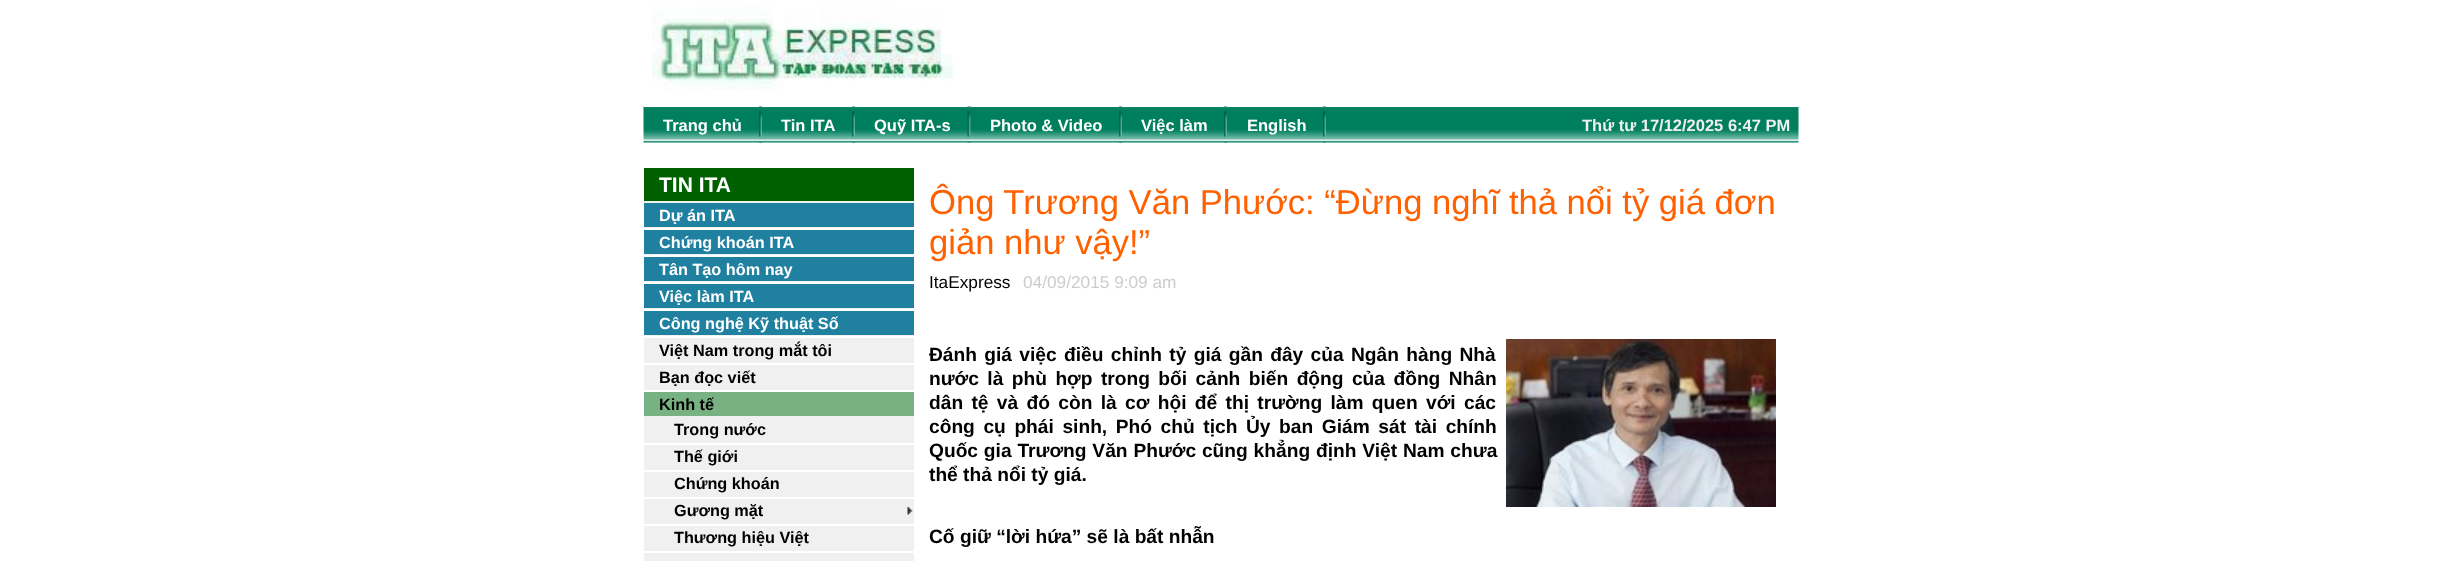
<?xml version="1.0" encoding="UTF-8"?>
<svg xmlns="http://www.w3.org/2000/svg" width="2442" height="561">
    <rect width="100%" height="100%" fill="#FFFFFF"/>
    <image x="652" y="6" width="301" height="84" href="img_01.png"/>
    <image x="643" y="106" width="1156" height="37" href="img_02.png"/>
    <rect x="644" y="106" width="1155" height="1" fill="#FFFFFF"/>
    <image x="759" y="106" width="3" height="37" href="img_03.png"/>
    <text x="663" y="131" font-family="Liberation Sans" font-size="16.5" font-weight="700" fill="#FFFFFF">Trang chủ</text>
    <image x="852" y="106" width="3" height="37" href="img_04.png"/>
    <text x="781" y="131" font-family="Liberation Sans" font-size="16.5" font-weight="700" fill="#FFFFFF">Tin ITA</text>
    <image x="967" y="106" width="4" height="37" href="img_05.png"/>
    <text x="874" y="131" font-family="Liberation Sans" font-size="16.5" font-weight="700" fill="#FFFFFF">Quỹ ITA-s</text>
    <image x="1119" y="106" width="3" height="37" href="img_03.png"/>
    <text x="990" y="131" font-family="Liberation Sans" font-size="16.5" font-weight="700" fill="#FFFFFF">Photo &amp; Video</text>
    <image x="1224" y="106" width="3" height="37" href="img_03.png"/>
    <text x="1141" y="131" font-family="Liberation Sans" font-size="16.5" font-weight="700" fill="#FFFFFF">Việc làm</text>
    <image x="1323" y="106" width="3" height="37" href="img_03.png"/>
    <text x="1247" y="131" font-family="Liberation Sans" font-size="16.5" font-weight="700" fill="#FFFFFF">English</text>
    <text x="1582" y="131" font-family="Liberation Sans" font-size="16.5" font-weight="700" fill="#F0F0F0">Thứ tư 17/12/2025 6:47 PM</text>
    <rect x="644" y="201" width="270" height="360" fill="#F0F0F0"/>
    <rect x="644" y="168" width="270" height="33" fill="#006000"/>
    <text x="659" y="192" font-family="Liberation Sans" font-size="21" font-weight="700" fill="#FFFFFF">TIN ITA</text>
    <rect x="644" y="203" width="270" height="24" fill="#2080A0"/>
    <text x="659" y="221" font-family="Liberation Sans" font-size="16.25" font-weight="700" fill="#FFFFFF">Dự án ITA</text>
    <rect x="644" y="230" width="270" height="24" fill="#2080A0"/>
    <rect x="644" y="228" width="270" height="2" fill="#FFFFFF"/>
    <text x="659" y="248" font-family="Liberation Sans" font-size="16.25" font-weight="700" fill="#FFFFFF">Chứng khoán ITA</text>
    <rect x="644" y="257" width="270" height="24" fill="#2080A0"/>
    <rect x="644" y="255" width="270" height="2" fill="#FFFFFF"/>
    <text x="659" y="275" font-family="Liberation Sans" font-size="16.25" font-weight="700" fill="#FFFFFF">Tân Tạo hôm nay</text>
    <rect x="644" y="284" width="270" height="24" fill="#2080A0"/>
    <rect x="644" y="282" width="270" height="2" fill="#FFFFFF"/>
    <text x="659" y="302" font-family="Liberation Sans" font-size="16.25" font-weight="700" fill="#FFFFFF">Việc làm ITA</text>
    <rect x="644" y="311" width="270" height="24" fill="#2080A0"/>
    <rect x="644" y="309" width="270" height="2" fill="#FFFFFF"/>
    <text x="659" y="329" font-family="Liberation Sans" font-size="16.25" font-weight="700" fill="#FFFFFF">Công nghệ Kỹ thuật Số</text>
    <rect x="644" y="336" width="270" height="2" fill="#FFFFFF"/>
    <text x="659" y="356" font-family="Liberation Sans" font-size="16.25" font-weight="700" fill="#000000">Việt Nam trong mắt tôi</text>
    <rect x="644" y="363" width="270" height="2" fill="#FFFFFF"/>
    <text x="659" y="383" font-family="Liberation Sans" font-size="16.25" font-weight="700" fill="#000000">Bạn đọc viết</text>
    <rect x="644" y="392" width="270" height="24" fill="#78B282"/>
    <rect x="644" y="390" width="270" height="2" fill="#FFFFFF"/>
    <text x="659" y="410" font-family="Liberation Sans" font-size="16.25" font-weight="700" fill="#000000">Kinh tế</text>
    <text x="674" y="435" font-family="Liberation Sans" font-size="16.25" font-weight="700" fill="#000000">Trong nước</text>
    <rect x="644" y="443" width="270" height="2" fill="#FFFFFF"/>
    <text x="674" y="462" font-family="Liberation Sans" font-size="16.25" font-weight="700" fill="#000000">Thế giới</text>
    <rect x="644" y="470" width="270" height="2" fill="#FFFFFF"/>
    <text x="674" y="489" font-family="Liberation Sans" font-size="16.25" font-weight="700" fill="#000000">Chứng khoán</text>
    <image x="907" y="506" width="6" height="9" href="img_06.png"/>
    <rect x="644" y="497" width="270" height="2" fill="#FFFFFF"/>
    <text x="674" y="516" font-family="Liberation Sans" font-size="16.25" font-weight="700" fill="#000000">Gương mặt</text>
    <rect x="644" y="524" width="270" height="2" fill="#FFFFFF"/>
    <text x="674" y="543" font-family="Liberation Sans" font-size="16.25" font-weight="700" fill="#000000">Thương hiệu Việt</text>
    <rect x="644" y="551" width="270" height="2" fill="#FFFFFF"/>
    <text font-family="Liberation Sans" font-size="34.6" fill="#FF6000">
        <tspan x="929" y="214">Ông Trương Văn Phước: “Đừng nghĩ thả nổi tỷ giá đơn</tspan>
        <tspan x="929" y="254">giản như vậy!”</tspan>
    </text>
    <text x="929" y="288" font-family="Liberation Sans" font-size="17.25" fill="#000000">ItaExpress</text>
    <text x="1023" y="288" font-family="Liberation Sans" font-size="17.25" fill="#CCCCCC">04/09/2015 9:09 am</text>
    <text font-family="Liberation Sans" font-size="19.2" font-weight="700" fill="#000000">
        <tspan x="929" y="361" word-spacing="2">Đánh giá việc điều chỉnh tỷ giá gần đây của Ngân hàng Nhà</tspan>
        <tspan x="929" y="385" word-spacing="3.1">nước là phù hợp trong bối cảnh biến động của đồng Nhân</tspan>
        <tspan x="929" y="409" word-spacing="3">dân tệ và đó còn là cơ hội để thị trường làm quen với các</tspan>
        <tspan x="929" y="433" word-spacing="3.25">công cụ phái sinh, Phó chủ tịch Ủy ban Giám sát tài chính</tspan>
        <tspan x="929" y="457" word-spacing="0.5">Quốc gia Trương Văn Phước cũng khẳng định Việt Nam chưa</tspan>
        <tspan x="929" y="481">thể thả nổi tỷ giá.</tspan>
    </text>
    <image x="1506" y="339" width="270" height="168" href="img_07.png"/>
    <text x="929" y="543" font-family="Liberation Sans" font-size="19.2" font-weight="700" fill="#000000">Cố giữ “lời hứa” sẽ là bất nhẫn</text>
</svg>
